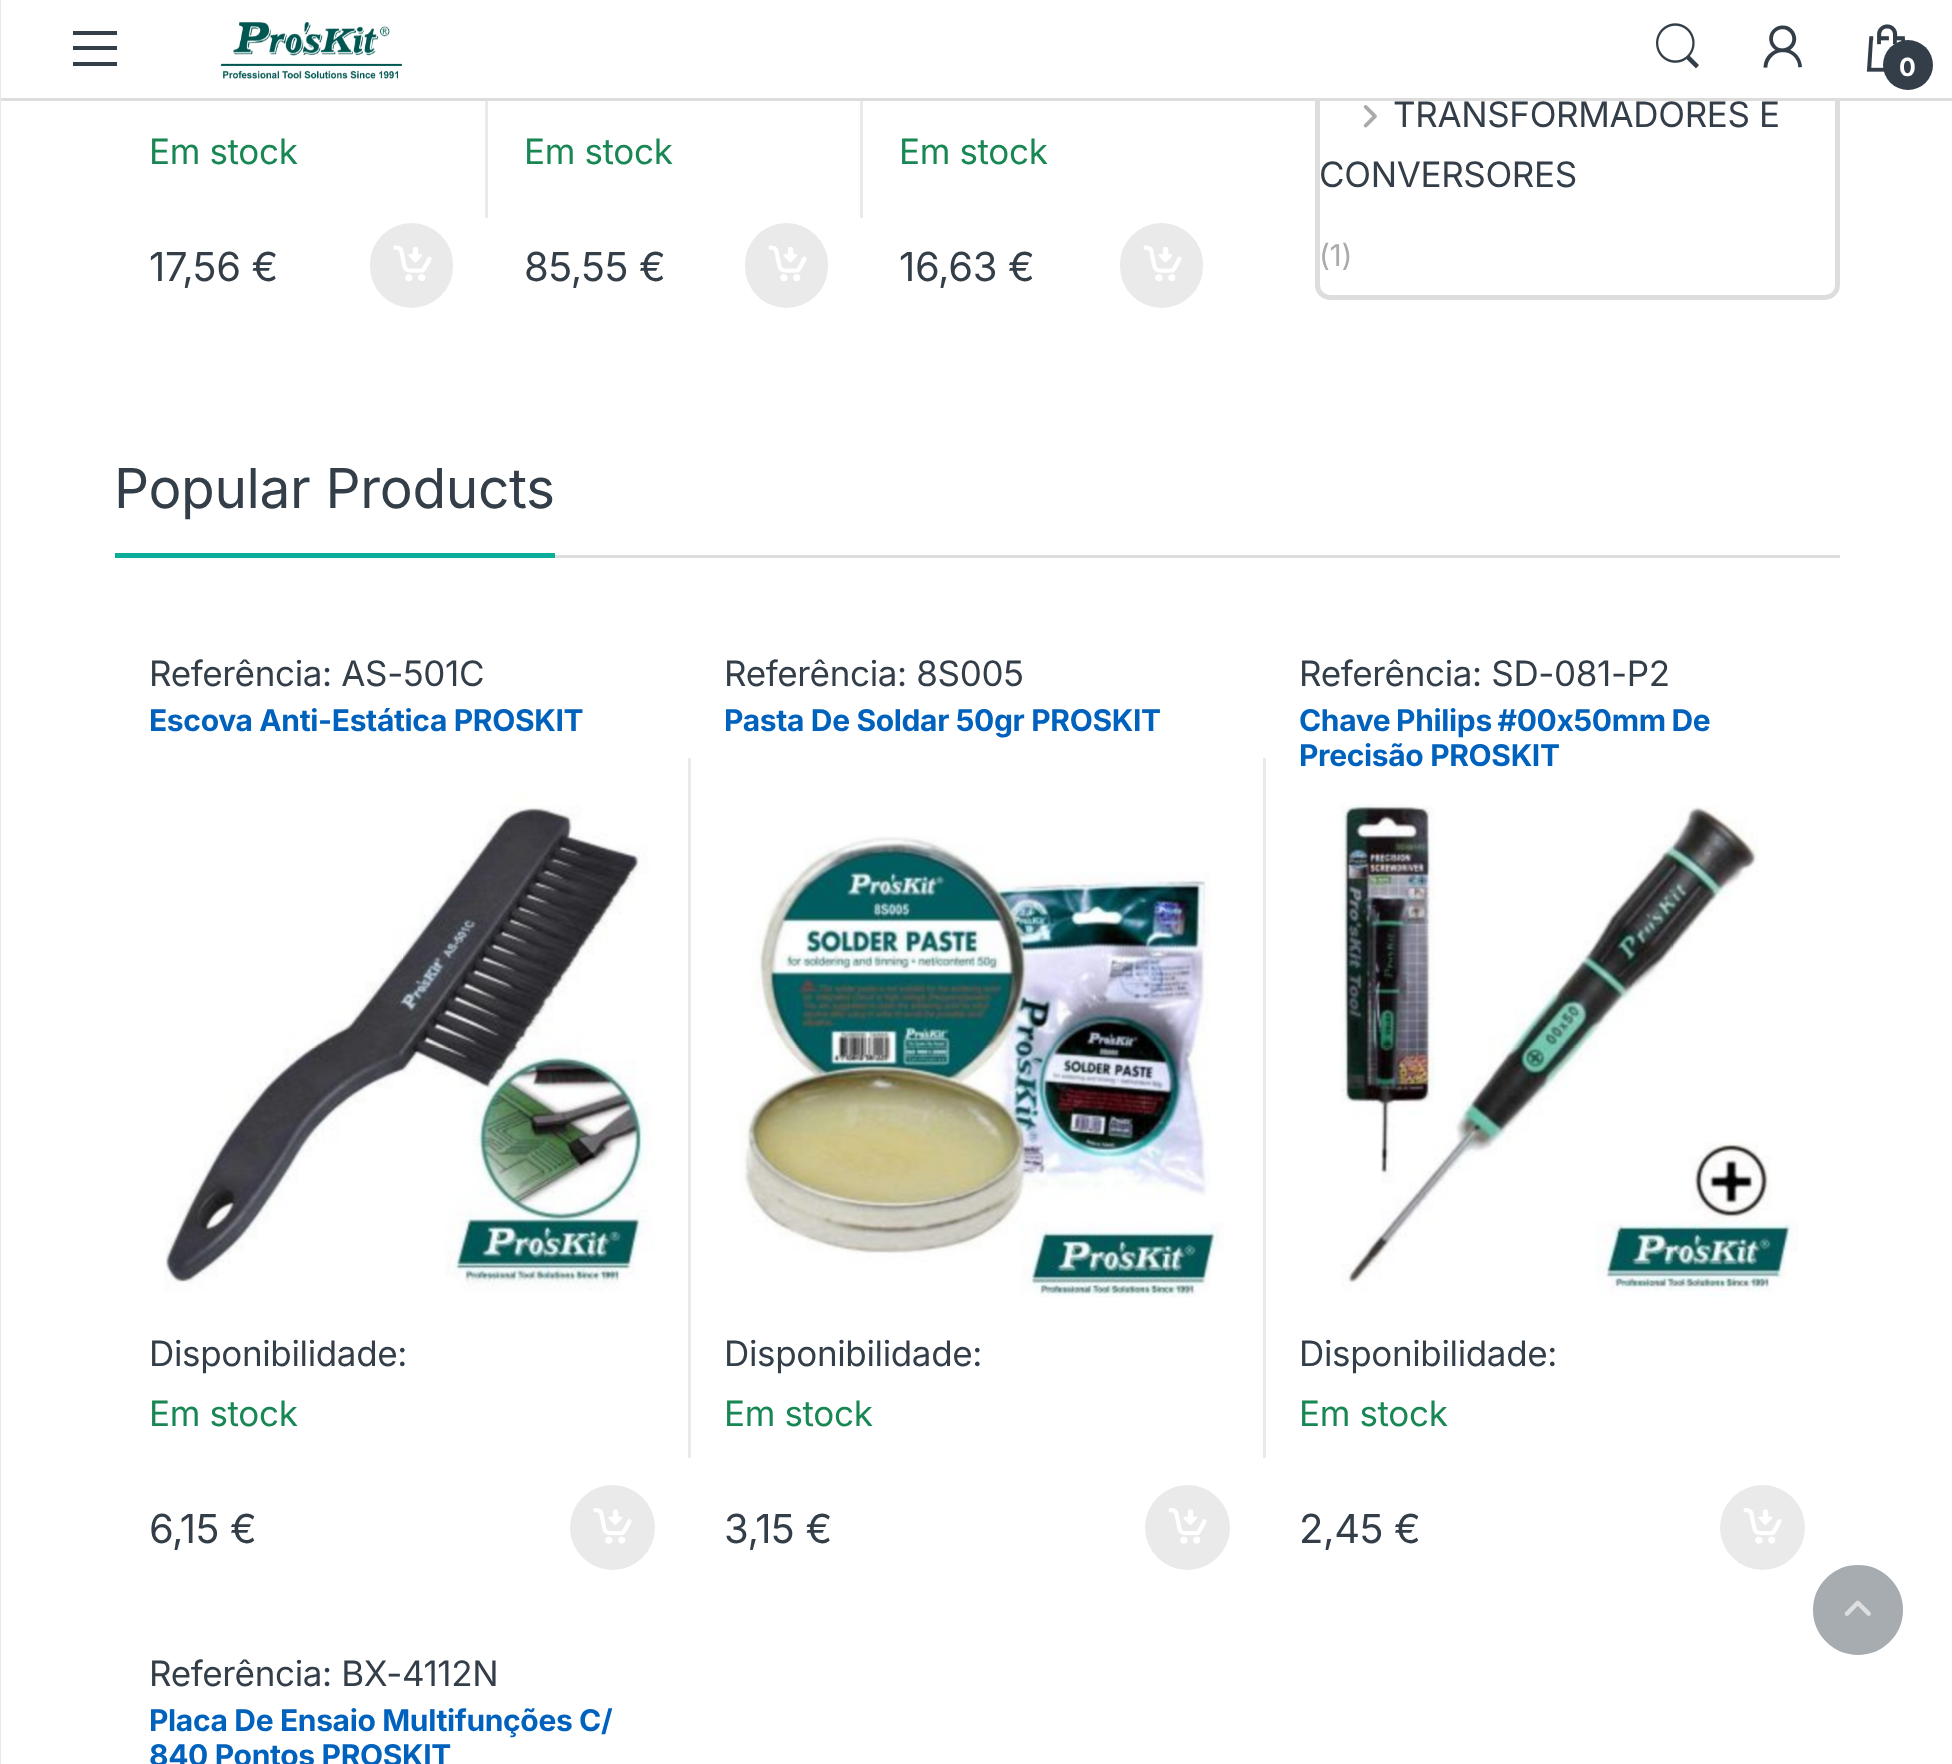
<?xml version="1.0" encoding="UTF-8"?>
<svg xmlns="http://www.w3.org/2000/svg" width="1952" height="1764">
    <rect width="100%" height="100%" fill="#FFFFFF"/>
    <rect x="1317.5" y="-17.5" width="520" height="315" rx="12.5" fill="none" stroke="#DDDDDD" stroke-width="5"/>
    <rect x="1315" y="0" width="525" height="98" fill="#FFFFFF"/>
    <rect x="0" y="98" width="1952" height="3" fill="#DDDDDD"/>
    <rect x="0" y="0" width="1" height="1764" fill="#E3E9EF"/>
    <path d="M 73 66 V 62 H 117 V 66 Z M 73 46 H 117 V 50 H 73 Z M 73 31 H 117 V 35 H 73 Z" fill="#333E48"/>
    <image x="220" y="22" width="182" height="57" href="img_01.png"/>
    <image x="1656" y="23" width="43" height="46" href="img_02.png"/>
    <image x="1763" y="25" width="39" height="43" href="img_03.png"/>
    <image x="1866" y="24" width="40" height="48" href="img_04.png"/>
    <circle cx="1908" cy="65" r="25" fill="#333E48"/>
    <text x="1899" y="76" font-family="Inter" font-size="25" font-weight="700" letter-spacing="-0.35" fill="#FFFFFF">0</text>
    <text x="149" y="164" font-family="Inter" font-size="35" letter-spacing="-0.35" fill="#198754">Em stock</text>
    <text x="149" y="281" font-family="Inter" font-size="40" letter-spacing="-0.35" fill="#333E48">17,56 €</text>
    <rect x="370" y="223" width="83" height="85" rx="41.5" fill="#EAEAEA"/>
    <image x="393" y="245" width="39" height="37" href="img_05.png"/>
    <rect x="485" y="101" width="3" height="117" fill="#EAEAEA"/>
    <text x="524" y="164" font-family="Inter" font-size="35" letter-spacing="-0.35" fill="#198754">Em stock</text>
    <text x="524" y="281" font-family="Inter" font-size="40" letter-spacing="-0.35" fill="#333E48">85,55 €</text>
    <rect x="745" y="223" width="83" height="85" rx="41.5" fill="#EAEAEA"/>
    <image x="768" y="245" width="39" height="37" href="img_05.png"/>
    <rect x="860" y="101" width="3" height="117" fill="#EAEAEA"/>
    <text x="899" y="164" font-family="Inter" font-size="35" letter-spacing="-0.35" fill="#198754">Em stock</text>
    <text x="899" y="281" font-family="Inter" font-size="40" letter-spacing="-0.35" fill="#333E48">16,63 €</text>
    <rect x="1120" y="223" width="83" height="85" rx="41.5" fill="#EAEAEA"/>
    <image x="1143" y="245" width="39" height="37" href="img_05.png"/>
    <image x="1363" y="105" width="14" height="23" href="img_06.png"/>
    <text x="1393" y="127" font-family="Inter" font-size="35" letter-spacing="-0.35" fill="#333E48">TRANSFORMADORES E</text>
    <text x="1319" y="187" font-family="Inter" font-size="35" letter-spacing="-0.35" fill="#333E48">CONVERSORES</text>
    <text x="1319" y="266" font-family="Inter" font-size="30" letter-spacing="-0.35" fill="#AAAAAA">(1)</text>
    <rect x="555" y="555" width="1285" height="3" fill="#DDDDDD"/>
    <text x="114" y="508" font-family="Inter" font-size="55" letter-spacing="-0.35" fill="#333E48">Popular Products</text>
    <rect x="115" y="553" width="440" height="5" fill="#0AAD99"/>
    <text x="149" y="686" font-family="Inter" font-size="35" letter-spacing="-0.35" fill="#333E48">Referência: AS-501C</text>
    <text x="149" y="731" font-family="Inter" font-size="30" font-weight="700" letter-spacing="-0.35" fill="#0062BD">Escova Anti-Estática PROSKIT</text>
    <image x="164" y="793" width="490" height="498" href="img_07.png"/>
    <text x="149" y="1366" font-family="Inter" font-size="35" letter-spacing="-0.35" fill="#333E48">Disponibilidade:</text>
    <text x="149" y="1426" font-family="Inter" font-size="35" letter-spacing="-0.35" fill="#198754">Em stock</text>
    <text x="149" y="1543" font-family="Inter" font-size="40" letter-spacing="-0.35" fill="#333E48">6,15 €</text>
    <circle cx="612.5" cy="1527.5" r="42.5" fill="#EAEAEA"/>
    <image x="593" y="1508" width="39" height="36" href="img_08.png"/>
    <rect x="688" y="758" width="3" height="700" fill="#EAEAEA"/>
    <text x="724" y="686" font-family="Inter" font-size="35" letter-spacing="-0.35" fill="#333E48">Referência: 8S005</text>
    <text x="724" y="731" font-family="Inter" font-size="30" font-weight="700" letter-spacing="-0.35" fill="#0062BD">Pasta De Soldar 50gr PROSKIT</text>
    <image x="739" y="836" width="485" height="462" href="img_09.png"/>
    <text x="724" y="1366" font-family="Inter" font-size="35" letter-spacing="-0.35" fill="#333E48">Disponibilidade:</text>
    <text x="724" y="1426" font-family="Inter" font-size="35" letter-spacing="-0.35" fill="#198754">Em stock</text>
    <text x="724" y="1543" font-family="Inter" font-size="40" letter-spacing="-0.35" fill="#333E48">3,15 €</text>
    <circle cx="1187.5" cy="1527.5" r="42.5" fill="#EAEAEA"/>
    <image x="1168" y="1508" width="39" height="36" href="img_08.png"/>
    <rect x="1263" y="758" width="3" height="700" fill="#EAEAEA"/>
    <text x="1299" y="686" font-family="Inter" font-size="35" letter-spacing="-0.35" fill="#333E48">Referência: SD-081-P2</text>
    <text font-family="Inter" font-size="30" font-weight="700" letter-spacing="-0.35" fill="#0062BD">
        <tspan x="1299" y="731" word-spacing="-1">Chave Philips #00x50mm De</tspan>
        <tspan x="1299" y="766">Precisão PROSKIT</tspan>
    </text>
    <image x="1340" y="803" width="459" height="494" href="img_10.png"/>
    <text x="1299" y="1366" font-family="Inter" font-size="35" letter-spacing="-0.35" fill="#333E48">Disponibilidade:</text>
    <text x="1299" y="1426" font-family="Inter" font-size="35" letter-spacing="-0.35" fill="#198754">Em stock</text>
    <text x="1299" y="1543" font-family="Inter" font-size="40" letter-spacing="-0.35" fill="#333E48">2,45 €</text>
    <circle cx="1762.5" cy="1527.5" r="42.5" fill="#EAEAEA"/>
    <image x="1743" y="1508" width="39" height="36" href="img_08.png"/>
    <text x="149" y="1686" font-family="Inter" font-size="35" letter-spacing="-0.35" fill="#333E48">Referência: BX-4112N</text>
    <text font-family="Inter" font-size="30" font-weight="700" letter-spacing="-0.35" fill="#0062BD">
        <tspan x="149" y="1731">Placa De Ensaio Multifunções C/</tspan>
        <tspan x="149" y="1766">840 Pontos PROSKIT</tspan>
    </text>
    <circle cx="1858" cy="1610" r="43.5" fill="#A7ACB1" stroke="#A7ACB1" stroke-width="3"/>
    <image x="1844" y="1600" width="27" height="16" href="img_11.png"/>
</svg>
